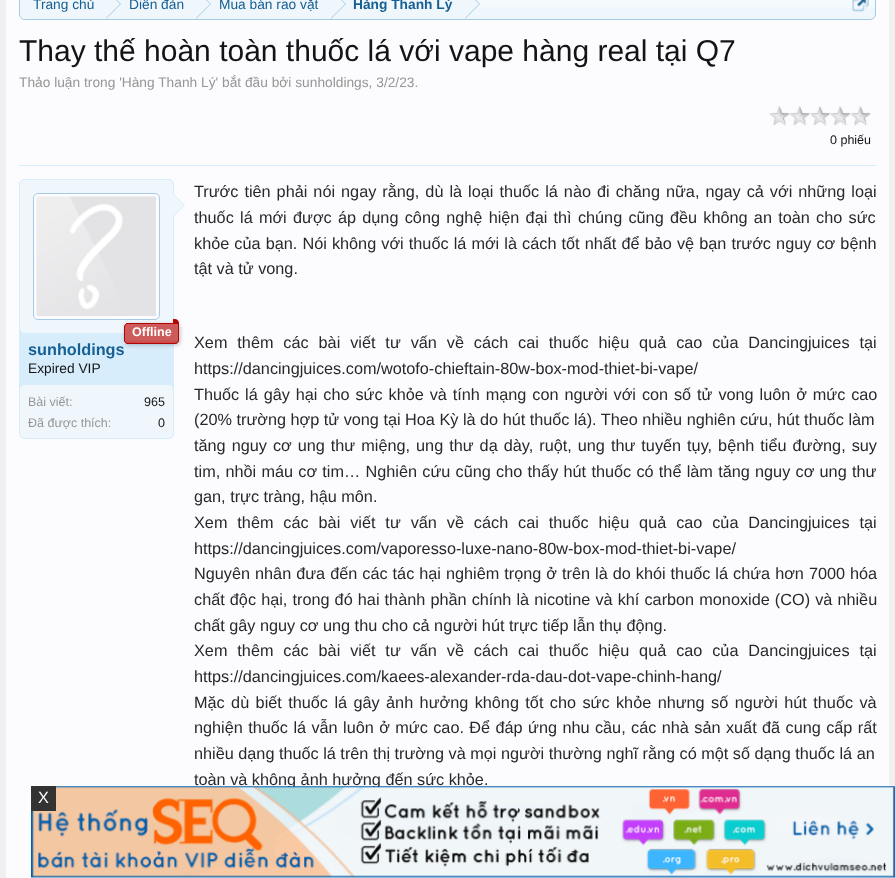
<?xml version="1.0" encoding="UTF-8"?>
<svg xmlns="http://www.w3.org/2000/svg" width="895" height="878">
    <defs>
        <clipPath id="clip1"><rect x="20" y="-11" width="855" height="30" rx="5"/></clipPath>
        <filter id="blur1" x="-50%" y="-200%" width="200%" height="500%"><feGaussianBlur stdDeviation="2"/></filter>
    </defs>
    <rect width="100%" height="100%" fill="#F0F0F0"/>
    <rect x="6" y="0" width="883" height="878" fill="#FCFCFF"/>
    <rect x="19" y="-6" width="857" height="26" rx="6" fill="#F0F7FC"/>
    <image x="476" y="0" width="399" height="8" href="img_01.png"/>
    <rect x="19.5" y="-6.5" width="856" height="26" rx="5.5" fill="none" stroke="#A5CAE4"/>
    <g clip-path="url(#clip1)">
        <path d="M 26 -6 H 106 V 20 H 26 C 22.5 20 20 17.5 20 14 V 0 C 20 -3.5 22.5 -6 26 -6 Z" fill="#F0F7FC"/>
    </g>
    <text x="33" y="9" font-family="Liberation Sans" font-size="13.75" fill="#176093">Trang chủ</text>
    <path d="M 106 19 V -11 L 121 4 Z" fill="#A5CAE4"/>
    <path d="M 105 19 V -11 L 120 4 Z" fill="#F0F7FC"/>
    <text x="129" y="9" font-family="Liberation Sans" font-size="13.75" fill="#176093">Diễn đàn</text>
    <path d="M 196 19 V -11 L 211 4 Z" fill="#A5CAE4"/>
    <path d="M 195 19 V -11 L 210 4 Z" fill="#F0F7FC"/>
    <text x="219" y="9" font-family="Liberation Sans" font-size="13.75" fill="#176093">Mua bán rao vặt</text>
    <path d="M 331 19 V -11 L 346 4 Z" fill="#A5CAE4"/>
    <path d="M 330 19 V -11 L 345 4 Z" fill="#F0F7FC"/>
    <text x="353" y="9" font-family="Liberation Sans" font-size="13.75" font-weight="700" fill="#176093">Hàng Thanh Lý</text>
    <path d="M 465 19 V -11 L 480 4 Z" fill="#A5CAE4"/>
    <path d="M 464 19 V -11 L 479 4 Z" fill="#F0F7FC"/>
    <image x="852" y="0" width="17" height="12" href="img_02.png"/>
    <text x="19" y="61" font-family="Liberation Sans" font-size="30" fill="#141414">Thay thế hoàn toàn thuốc lá với vape hàng real tại Q7</text>
    <text x="19" y="87" font-family="Liberation Sans" font-size="13.75" fill="#969696">Thảo luận trong 'Hàng Thanh Lý' bắt đầu bởi sunholdings, 3/2/23.</text>
    <image x="769" y="106" width="21" height="20" href="img_03.png"/>
    <image x="789" y="106" width="21" height="20" href="img_04.png"/>
    <image x="810" y="106" width="20" height="20" href="img_05.png"/>
    <image x="830" y="106" width="21" height="20" href="img_06.png"/>
    <image x="850" y="106" width="21" height="20" href="img_07.png"/>
    <text x="830" y="144" font-family="Liberation Sans" font-size="12.5" fill="#141414">0 phiếu</text>
    <rect x="19" y="165" width="857" height="1" fill="#D7EDFC"/>
    <rect x="19" y="179" width="155" height="260" rx="6" fill="#D7EDFC"/>
    <image x="19" y="433" width="155" height="5" href="img_08.png"/>
    <rect x="19.5" y="179.5" width="154" height="259" rx="5.5" fill="none" stroke="#D7EDFC"/>
    <rect x="20" y="180" width="153" height="153" rx="5" fill="#F0F7FC"/>
    <rect x="33.5" y="193.5" width="126" height="126" rx="4.5" fill="#FCFCFF" stroke="#A5CAE4"/>
    <image x="36" y="196" width="120" height="120" href="img_09.png"/>
    <path d="M 172.5 217.5 V 192.5 L 185 205 Z" fill="#D7EDFC"/>
    <path d="M 171 217.5 V 192.5 L 184 205 Z" fill="#F0F7FC"/>
    <rect x="125" y="324" width="55" height="21" rx="4" fill="#000000" fill-opacity="0.25" filter="url(#blur1)"/>
    <path d="M 128 323 H 179 V 340 C 179 342 177 344 175 344 H 128 C 126 344 124 342 124 340 V 327 C 124 325 126 323 128 323 Z" fill="#B40404"/>
    <image x="124" y="323" width="55" height="21" href="img_10.png"/>
    <path d="M 128 323.5 H 178.5 V 340 C 178.5 342 177 343.5 175 343.5 H 128 C 126 343.5 124.5 342 124.5 340 V 327 C 124.5 325 126 323.5 128 323.5 Z" fill="none" stroke="#B40404"/>
    <path d="M 173 319 H 175 C 177 319 179 321 179 323 V 324 H 173 Z" fill="#B40404"/>
    <text x="132" y="336" font-family="Liberation Sans" font-size="12.5" font-weight="700" fill="#FFFFFF">Offline</text>
    <text x="28" y="355" font-family="Liberation Sans" font-size="16.25" font-weight="700" fill="#176093">sunholdings</text>
    <text x="28" y="373" font-family="Liberation Sans" font-size="13.75" fill="#141414">Expired VIP</text>
    <rect x="20" y="385" width="153" height="53" rx="5" fill="#F0F7FC"/>
    <text x="28" y="406" font-family="Liberation Sans" font-size="12.5" fill="#969696">Bài viết:</text>
    <text x="144" y="406" font-family="Liberation Sans" font-size="12.5" fill="#141414">965</text>
    <text x="28" y="427" font-family="Liberation Sans" font-size="12.5" fill="#969696">Đã được thích:</text>
    <text x="158" y="427" font-family="Liberation Sans" font-size="12.5" fill="#141414">0</text>
    <text font-family="Liberation Sans" font-size="16.25" fill="#282828">
        <tspan x="194" y="197" word-spacing="1.5">Trước tiên phải nói ngay rằng, dù là loại thuốc lá nào đi chăng nữa, ngay cả với những loại</tspan>
        <tspan x="194" y="223" word-spacing="1.75">thuốc lá mới được áp dụng công nghệ hiện đại thì chúng cũng đều không an toàn cho sức</tspan>
        <tspan x="194" y="249" word-spacing="0.6">khỏe của bạn. Nói không với thuốc lá mới là cách tốt nhất để bảo vệ bạn trước nguy cơ bệnh</tspan>
        <tspan x="194" y="274">tật và tử vong.</tspan>
    </text>
    <text font-family="Liberation Sans" font-size="16.25" fill="#282828">
        <tspan x="194" y="348" word-spacing="5.4">Xem thêm các bài viết tư vấn về cách cai thuốc hiệu quả cao của Dancingjuices tại</tspan>
        <tspan x="194" y="374">https://dancingjuices.com/wotofo-chieftain-80w-box-mod-thiet-bi-vape/</tspan>
        <tspan x="194" y="400" word-spacing="1.4">Thuốc lá gây hại cho sức khỏe và tính mạng con người với con số tử vong luôn ở mức cao</tspan>
        <tspan x="194" y="425">(20% trường hợp tử vong tại Hoa Kỳ là do hút thuốc lá). Theo nhiều nghiên cứu, hút thuốc làm</tspan>
        <tspan x="194" y="451" word-spacing="1.5">tăng nguy cơ ung thư miệng, ung thư dạ dày, ruột, ung thư tuyến tụy, bệnh tiểu đường, suy</tspan>
        <tspan x="194" y="477" word-spacing="0.75">tim, nhồi máu cơ tim… Nghiên cứu cũng cho thấy hút thuốc có thể làm tăng nguy cơ ung thư</tspan>
        <tspan x="194" y="502">gan, trực tràng, hậu môn.</tspan>
        <tspan x="194" y="528" word-spacing="5.4">Xem thêm các bài viết tư vấn về cách cai thuốc hiệu quả cao của Dancingjuices tại</tspan>
        <tspan x="194" y="554">https://dancingjuices.com/vaporesso-luxe-nano-80w-box-mod-thiet-bi-vape/</tspan>
        <tspan x="194" y="579" word-spacing="0.5">Nguyên nhân đưa đến các tác hại nghiêm trọng ở trên là do khói thuốc lá chứa hơn 7000 hóa</tspan>
        <tspan x="194" y="605" word-spacing="0.6">chất độc hại, trong đó hai thành phần chính là nicotine và khí carbon monoxide (CO) và nhiều</tspan>
        <tspan x="194" y="631">chất gây nguy cơ ung thu cho cả người hút trực tiếp lẫn thụ động.</tspan>
        <tspan x="194" y="656" word-spacing="5.4">Xem thêm các bài viết tư vấn về cách cai thuốc hiệu quả cao của Dancingjuices tại</tspan>
        <tspan x="194" y="682">https://dancingjuices.com/kaees-alexander-rda-dau-dot-vape-chinh-hang/</tspan>
        <tspan x="194" y="708" word-spacing="1.9">Mặc dù biết thuốc lá gây ảnh hưởng không tốt cho sức khỏe nhưng số người hút thuốc và</tspan>
        <tspan x="194" y="733" word-spacing="0.9">nghiện thuốc lá vẫn luôn ở mức cao. Để đáp ứng nhu cầu, các nhà sản xuất đã cung cấp rất</tspan>
        <tspan x="194" y="759">nhiều dạng thuốc lá trên thị trường và mọi người thường nghĩ rằng có một số dạng thuốc lá an</tspan>
        <tspan x="194" y="785">toàn và không ảnh hưởng đến sức khỏe.</tspan>
    </text>
    <image x="31" y="786" width="864" height="92" href="img_11.png"/>
    <rect x="31" y="786" width="25" height="25" fill="#333333"/>
    <text x="38" y="803" font-family="Liberation Sans" font-size="16.25" fill="#FFFFFF">X</text>
</svg>
